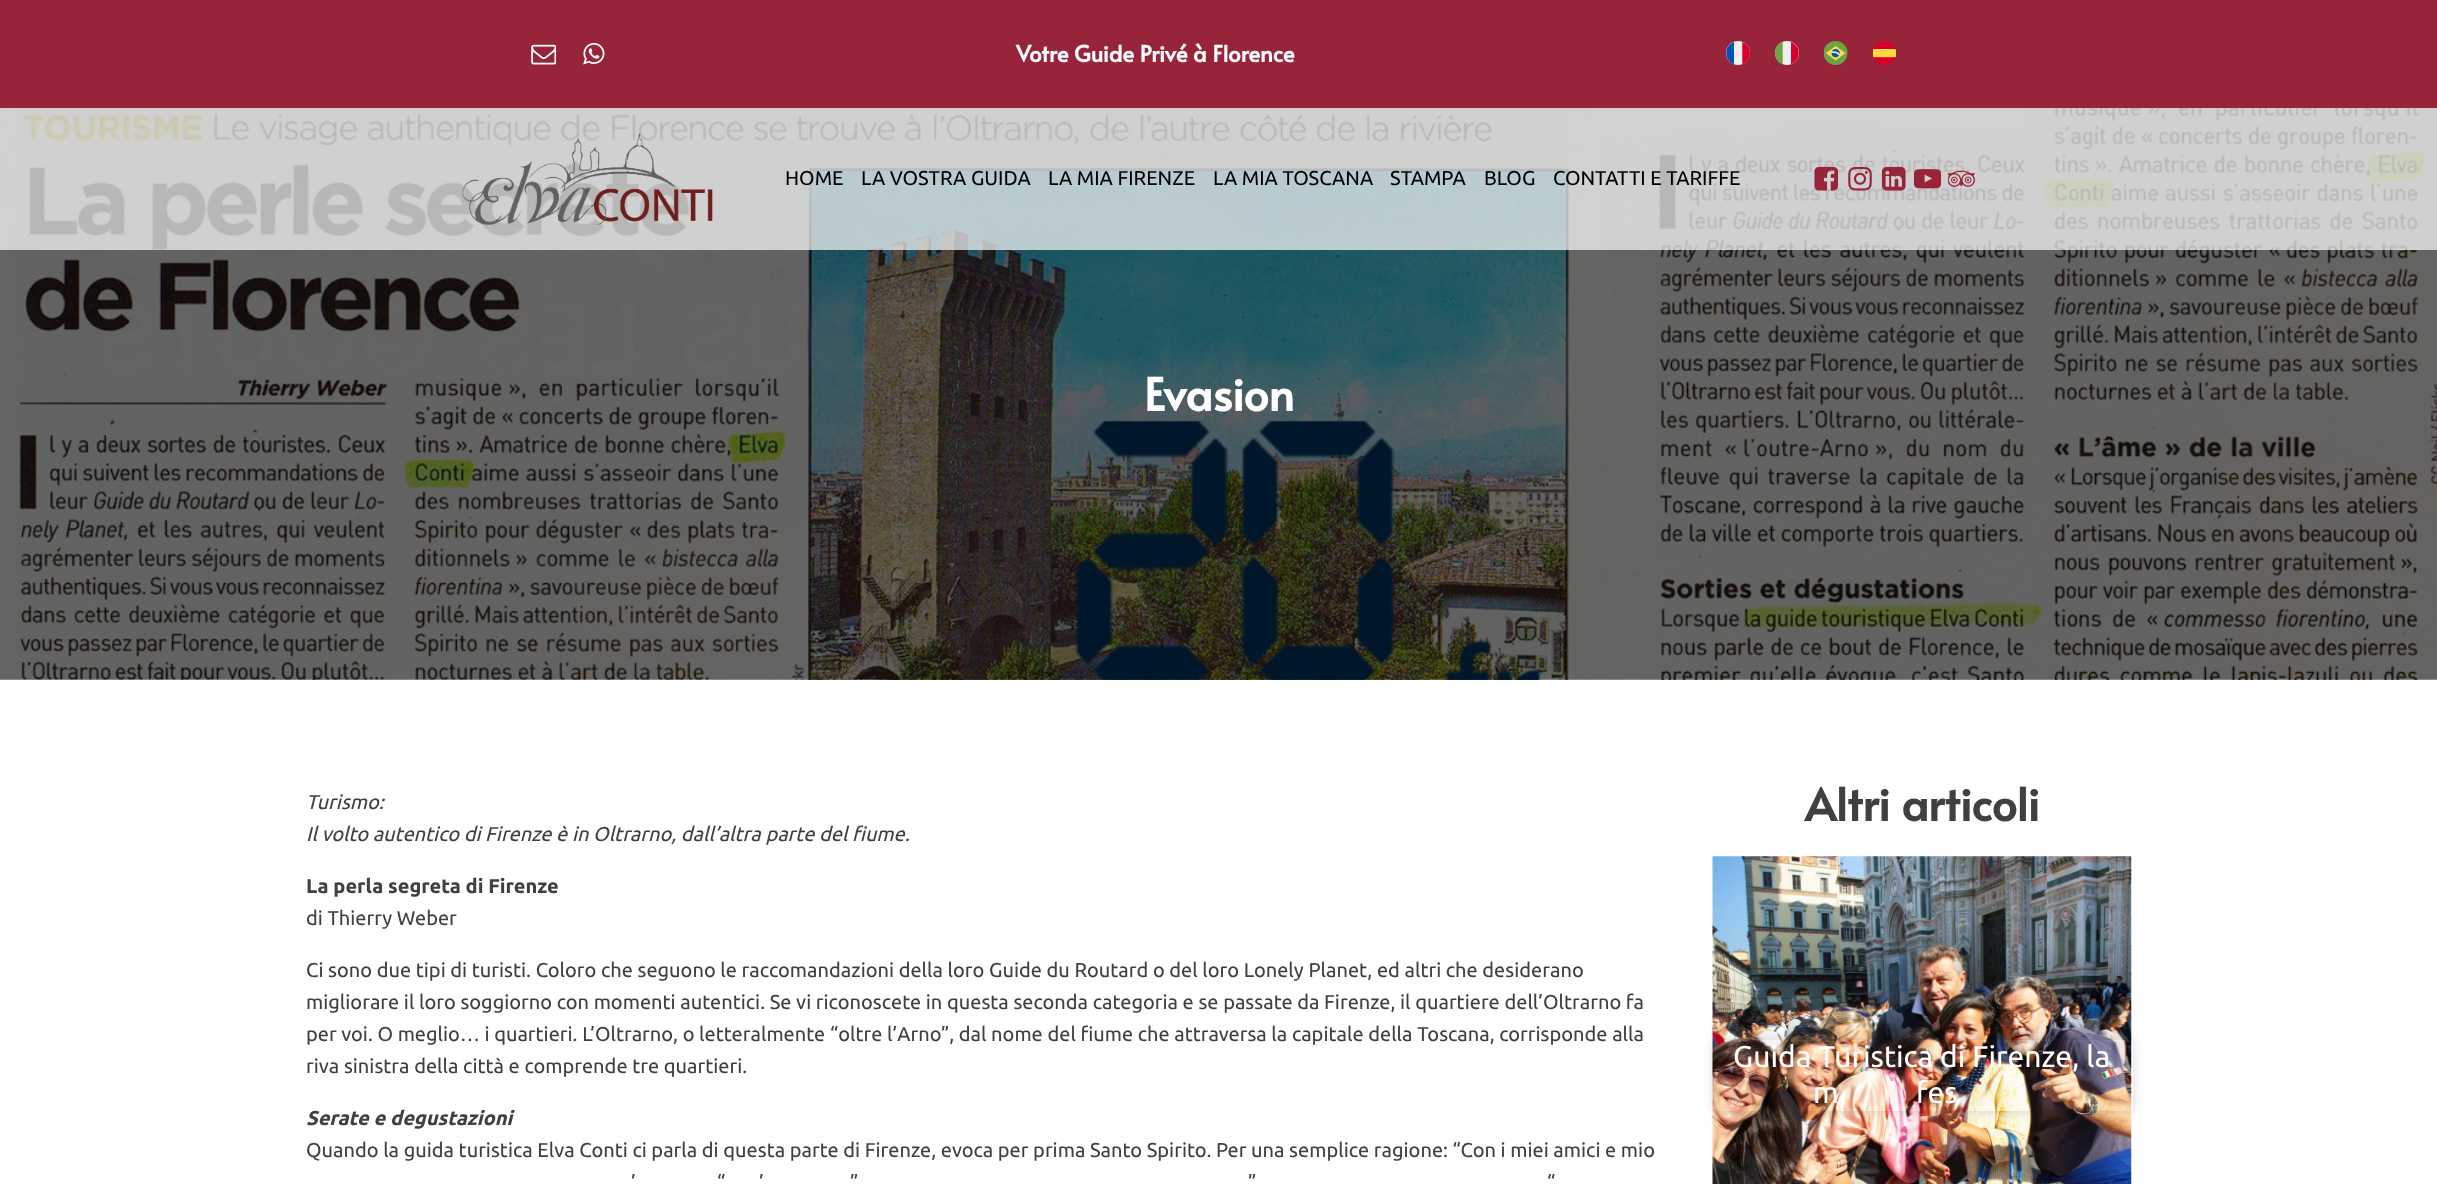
<?xml version="1.0" encoding="UTF-8"?>
<svg xmlns="http://www.w3.org/2000/svg" width="2437" height="1184">
    <defs>
        <clipPath id="clip1"><path d="M 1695 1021 H 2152 V 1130 H 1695 Z M 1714 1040 H 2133 V 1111 H 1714 Z" clip-rule="evenodd"/></clipPath>
        <filter id="blur1" x="-50%" y="-200%" width="200%" height="500%"><feGaussianBlur stdDeviation="6"/></filter>
    </defs>
    <rect width="100%" height="100%" fill="#FFFFFF"/>
    <rect x="0" y="0" width="2437" height="108" fill="#98243A"/>
    <image x="531" y="44" width="25" height="21" href="img_01.png"/>
    <image x="583" y="43" width="22" height="22" href="img_02.png"/>
    <text x="1016" y="62" font-family="Alata" font-size="22.5" font-weight="700" fill="#F6FAFD">Votre Guide Privé à Florence</text>
    <image x="1726" y="41" width="24" height="24" href="img_03.png"/>
    <image x="1775" y="41" width="24" height="24" href="img_04.png"/>
    <image x="1824" y="41" width="24" height="24" href="img_05.png"/>
    <image x="1873" y="41" width="23" height="24" href="img_06.png"/>
    <image x="0" y="108" width="2437" height="572" href="img_13.png"/>
    <rect x="0" y="108" width="2437" height="142" fill="#FFFFFF" fill-opacity="0.7"/>
    <image x="462" y="133" width="251" height="92" href="img_07.png"/>
    <text x="785" y="185" font-family="Ubuntu" font-size="20" fill="#000000">HOME</text>
    <text x="861" y="185" font-family="Ubuntu" font-size="20" fill="#000000">LA VOSTRA GUIDA</text>
    <text x="1048" y="185" font-family="Ubuntu" font-size="20" fill="#000000">LA MIA FIRENZE</text>
    <text x="1213" y="185" font-family="Ubuntu" font-size="20" fill="#000000">LA MIA TOSCANA</text>
    <text x="1390" y="185" font-family="Ubuntu" font-size="20" fill="#000000">STAMPA</text>
    <text x="1484" y="185" font-family="Ubuntu" font-size="20" fill="#000000">BLOG</text>
    <text x="1553" y="185" font-family="Ubuntu" font-size="20" fill="#000000">CONTATTI E TARIFFE</text>
    <image x="1814" y="166" width="25" height="25" href="img_08.png"/>
    <image x="1848" y="167" width="24" height="24" href="img_09.png"/>
    <image x="1881" y="166" width="25" height="25" href="img_10.png"/>
    <image x="1914" y="169" width="27" height="20" href="img_11.png"/>
    <image x="1948" y="170" width="27" height="17" href="img_12.png"/>
    <text x="1144" y="411" font-family="Alata" font-size="45" font-weight="700" fill="#FFFFFF">Evasion</text>
    <text font-family="Ubuntu" font-size="20" font-style="italic" fill="#404040">
        <tspan x="306" y="809">Turismo:</tspan>
        <tspan x="306" y="841">Il volto autentico di Firenze è in Oltrarno, dall’altra parte del fiume.</tspan>
    </text>
    <text x="306" y="893" font-family="Ubuntu" font-size="20" font-weight="700" fill="#404040">La perla segreta di Firenze</text>
    <text x="306" y="925" font-family="Ubuntu" font-size="20" fill="#404040">di Thierry Weber</text>
    <text font-family="Ubuntu" font-size="20" fill="#404040">
        <tspan x="306" y="977">Ci sono due tipi di turisti. Coloro che seguono le raccomandazioni della loro Guide du Routard o del loro Lonely Planet, ed altri che desiderano</tspan>
        <tspan x="306" y="1009">migliorare il loro soggiorno con momenti autentici. Se vi riconoscete in questa seconda categoria e se passate da Firenze, il quartiere dell’Oltrarno fa</tspan>
        <tspan x="306" y="1041">per voi. O meglio… i quartieri. L’Oltrarno, o letteralmente “oltre l’Arno”, dal nome del fiume che attraversa la capitale della Toscana, corrisponde alla</tspan>
        <tspan x="306" y="1073">riva sinistra della città e comprende tre quartieri.</tspan>
    </text>
    <text x="306" y="1125" font-family="Ubuntu" font-size="20" font-weight="700" font-style="italic" fill="#404040">Serate e degustazioni</text>
    <text x="306" y="1157" font-family="Ubuntu" font-size="20" fill="#404040">Quando la guida turistica Elva Conti ci parla di questa parte di Firenze, evoca per prima Santo Spirito. Per una semplice ragione: “Con i miei amici e mio</text>
    <text x="631" y="1189" font-family="Ubuntu" font-size="20" fill="#404040">’</text>
    <text x="717" y="1189" font-family="Ubuntu" font-size="20" fill="#404040">“</text>
    <text x="759" y="1189" font-family="Ubuntu" font-size="20" fill="#404040">’</text>
    <text x="850" y="1189" font-family="Ubuntu" font-size="20" fill="#404040">”</text>
    <text x="1248" y="1189" font-family="Ubuntu" font-size="20" fill="#404040">”</text>
    <text x="1547" y="1189" font-family="Ubuntu" font-size="20" fill="#404040">“</text>
    <text x="1805" y="821" font-family="Alata" font-size="45" font-weight="700" fill="#404040">Altri articoli</text>
    <image x="1712" y="856" width="420" height="328" href="img_14.png"/>
    <g clip-path="url(#clip1)">
        <rect x="1714" y="1040" width="419" height="71" fill="#000000" fill-opacity="0.15" filter="url(#blur1)"/>
    </g>
    <text x="1733" y="1067" font-family="Ubuntu" font-size="30" fill="#FFFFFF">Guida Turistica di Firenze, la</text>
    <text x="1813" y="1103" font-family="Ubuntu" font-size="30" fill="#FFFFFF">m</text>
    <text x="1916" y="1103" font-family="Ubuntu" font-size="30" fill="#FFFFFF">fes</text>
</svg>
